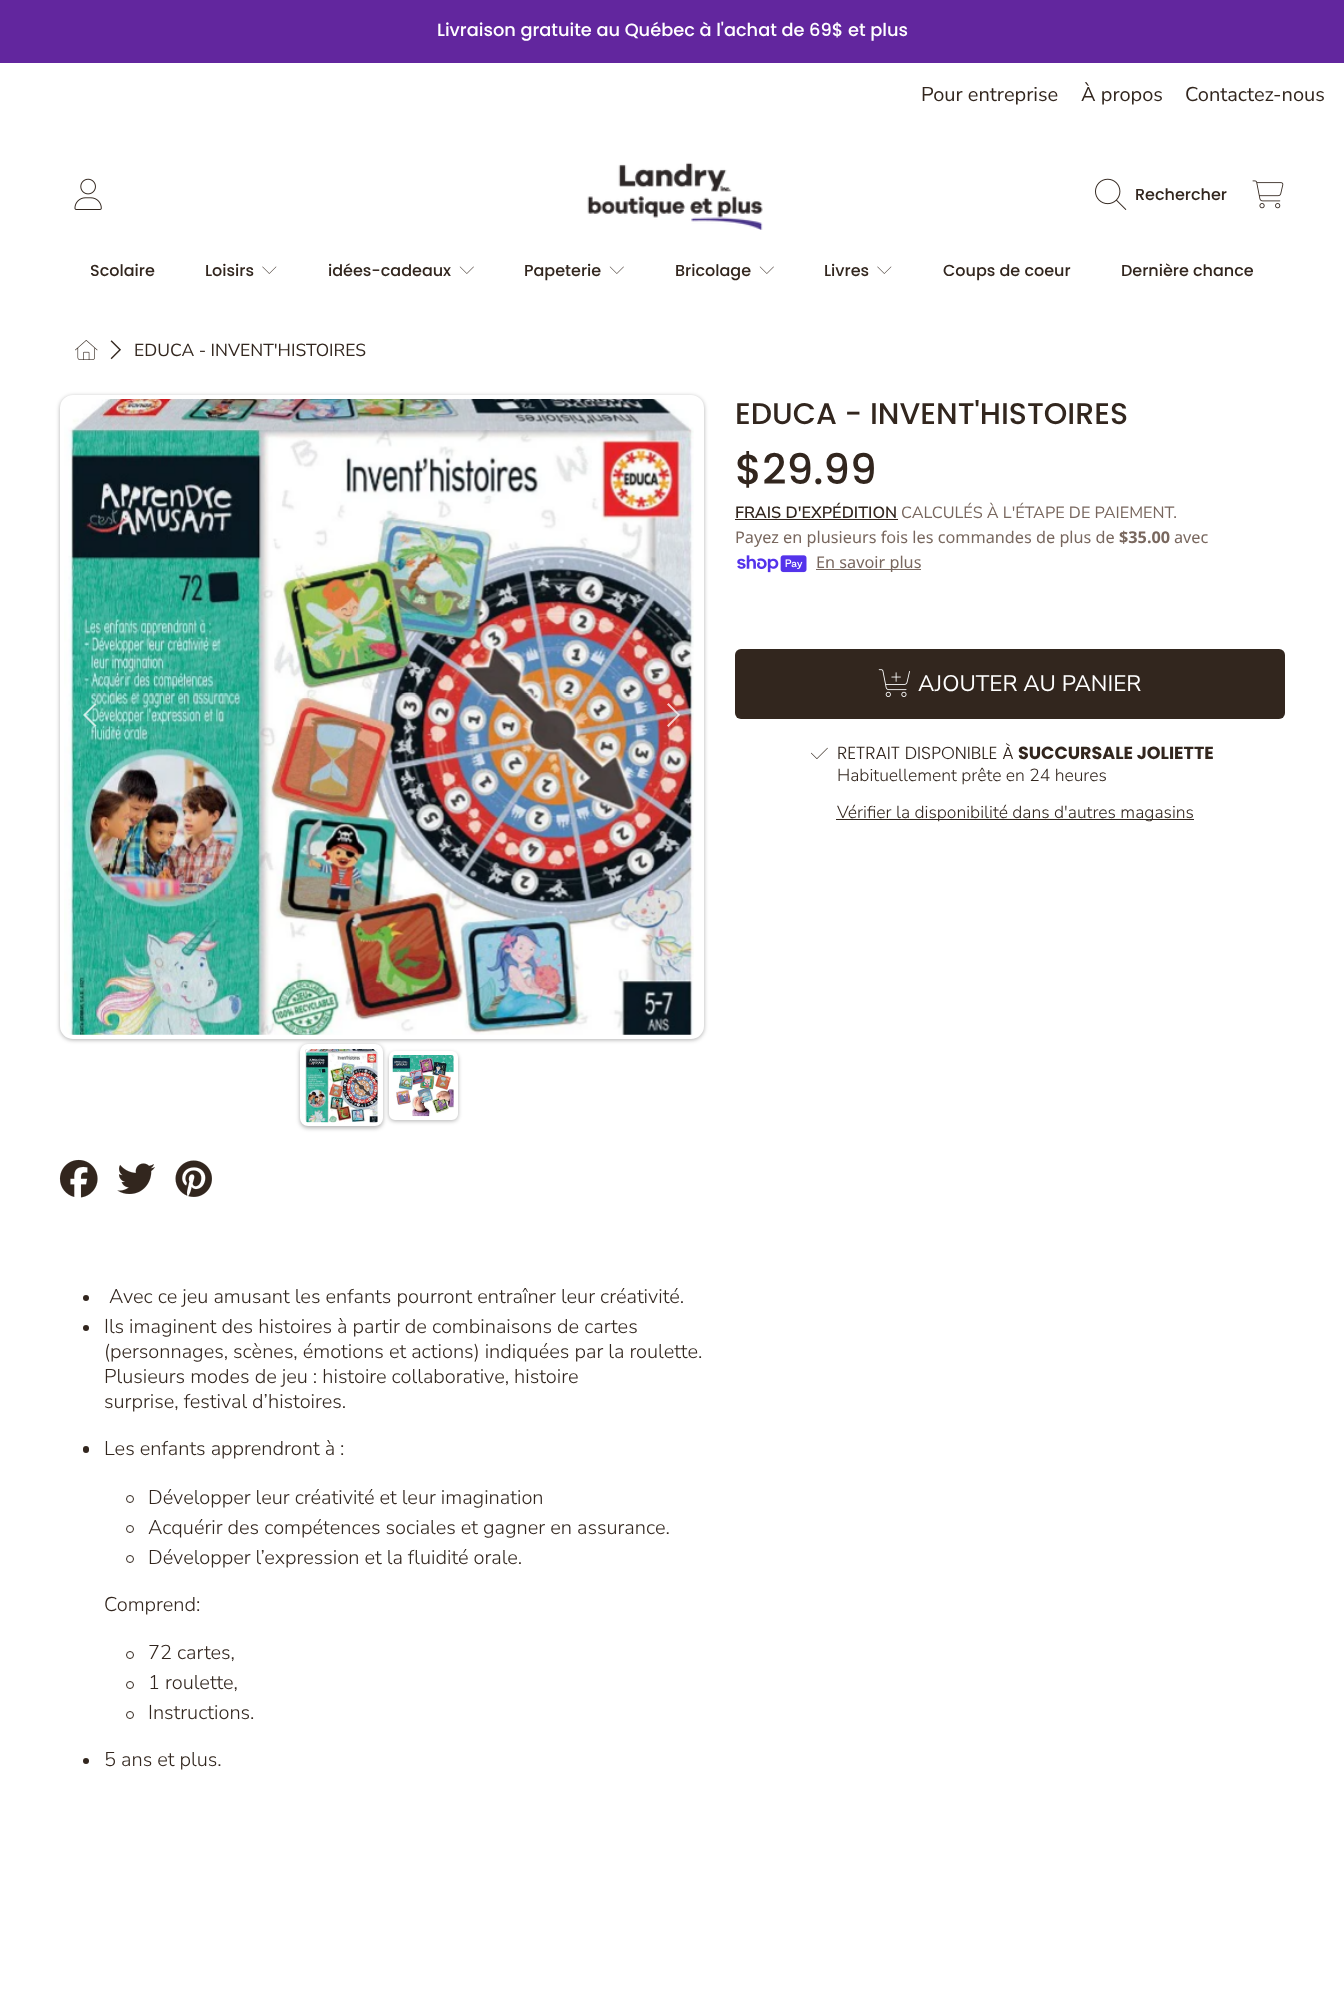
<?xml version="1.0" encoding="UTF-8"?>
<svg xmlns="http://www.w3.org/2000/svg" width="1344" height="2007">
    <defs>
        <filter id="blur1" x="-50%" y="-200%" width="200%" height="500%"><feGaussianBlur stdDeviation="2"/></filter>
    </defs>
    <rect width="100%" height="100%" fill="#FFFFFF"/>
    <rect x="0" y="0" width="1344" height="63" fill="#62269E"/>
    <text x="437" y="36" font-family="Poppins" font-size="17.8" font-weight="500" fill="#FFFFFF">Livraison gratuite au Québec à l'achat de 69$ et plus</text>
    <text x="921" y="101" font-family="Nunito Sans" font-size="20" fill="#32261E">Pour entreprise</text>
    <text x="1081" y="101" font-family="Nunito Sans" font-size="20" fill="#32261E">À propos</text>
    <text x="1185" y="101" font-family="Nunito Sans" font-size="20" fill="#32261E">Contactez-nous</text>
    <image x="74" y="178" width="28" height="32" href="img_01.png"/>
    <image x="587" y="162" width="176" height="68" href="img_02.png"/>
    <image x="1095" y="178" width="32" height="32" href="img_03.png"/>
    <text x="1135" y="200" font-family="Poppins" font-size="16" font-weight="500" fill="#32261E">Rechercher</text>
    <image x="1252" y="180" width="32" height="29" href="img_04.png"/>
    <text x="90" y="276" font-family="Poppins" font-size="16" font-weight="500" fill="#32261E">Scolaire</text>
    <text x="205" y="276" font-family="Poppins" font-size="16" font-weight="500" fill="#32261E">Loisirs</text>
    <image x="262" y="266" width="15" height="8" href="img_05.png"/>
    <text x="328" y="276" font-family="Poppins" font-size="16" font-weight="500" fill="#32261E">idées-cadeaux</text>
    <image x="459" y="266" width="15" height="8" href="img_06.png"/>
    <text x="524" y="276" font-family="Poppins" font-size="16" font-weight="500" fill="#32261E">Papeterie</text>
    <image x="609" y="266" width="15" height="8" href="img_06.png"/>
    <text x="675" y="276" font-family="Poppins" font-size="16" font-weight="500" fill="#32261E">Bricolage</text>
    <image x="759" y="266" width="15" height="8" href="img_06.png"/>
    <text x="824" y="276" font-family="Poppins" font-size="16" font-weight="500" fill="#32261E">Livres</text>
    <image x="877" y="266" width="15" height="8" href="img_05.png"/>
    <text x="943" y="276" font-family="Poppins" font-size="16" font-weight="500" fill="#32261E">Coups de coeur</text>
    <text x="1121" y="276" font-family="Poppins" font-size="16" font-weight="500" fill="#32261E">Dernière chance</text>
    <image x="75" y="340" width="23" height="20" href="img_07.png"/>
    <image x="110" y="340" width="11" height="20" href="img_08.png"/>
    <text x="134" y="356" font-family="Nunito Sans" font-size="17.5" fill="#32261E">EDUCA - INVENT'HISTOIRES</text>
    <rect x="60" y="396" width="644" height="644" rx="13" fill="#000000" fill-opacity="0.31" filter="url(#blur1)"/>
    <rect x="62" y="397" width="640" height="640" rx="11" fill="#FFFFFF" stroke="#FFFFFF" stroke-width="4"/>
    <image x="64" y="399" width="630" height="636" href="img_09.png"/>
    <path d="M 84.5 713.5 L 96.5 725.5 L 95 727 L 83 715 Z M 83 715 L 95 703 L 96.5 704.5 L 84.5 716 Z" fill="#FFFFFF" fill-opacity="0.75"/>
    <path d="M 679 713.5 L 667 725.5 L 668.5 727 L 680 715 Z M 680 715 L 668.5 703 L 667 704.5 L 679 716 Z" fill="#FFFFFF" fill-opacity="0.75"/>
    <rect x="300" y="1045" width="83" height="83" rx="8" fill="#000000" fill-opacity="0.31" filter="url(#blur1)"/>
    <rect x="302.5" y="1046.5" width="78" height="77" rx="5.5" fill="none" stroke="#FFFFFF" stroke-width="5"/>
    <image x="305" y="1049" width="74" height="74" href="img_10.png"/>
    <rect x="389" y="1053" width="69" height="68" rx="6" fill="#000000" fill-opacity="0.31" filter="url(#blur1)"/>
    <rect x="391" y="1053" width="65" height="65" rx="4" fill="#FFFFFF" stroke="#FFFFFF" stroke-width="4"/>
    <image x="392" y="1055" width="62" height="62" href="img_11.png"/>
    <text x="735" y="424" font-family="Poppins" font-size="30" font-weight="500" fill="#32261E">EDUCA - INVENT'HISTOIRES</text>
    <text x="735" y="484" font-family="Poppins" font-size="42" font-weight="500" fill="#32261E">$29.99</text>
    <text x="735" y="518" font-family="Nunito Sans" font-size="16.25" font-weight="600" fill="#32261E">FRAIS D'EXPÉDITION</text>
    <rect x="735" y="519" width="163" height="1" fill="#32261E"/>
    <text x="901" y="518" font-family="Nunito Sans" font-size="16.25" fill="#78675E">CALCULÉS À L'ÉTAPE DE PAIEMENT.</text>
    <text x="735" y="543" font-family="Noto Sans" font-size="16.25" fill="#78675E">Payez en plusieurs fois les commandes de plus de</text>
    <text x="1119" y="543" font-family="Noto Sans" font-size="16.25" font-weight="700" fill="#78675E">$35.00</text>
    <text x="1174" y="543" font-family="Noto Sans" font-size="16.25" fill="#78675E">avec</text>
    <image x="737" y="555" width="70" height="18" href="img_12.png"/>
    <rect x="816" y="569" width="105" height="1" fill="#78675E"/>
    <text x="816" y="568" font-family="Noto Sans" font-size="16.25" fill="#78675E">En savoir plus</text>
    <rect x="735" y="649" width="550" height="70" rx="6" fill="#32261E"/>
    <image x="878" y="669" width="32" height="28" href="img_13.png"/>
    <text x="918" y="691" font-family="Nunito Sans" font-size="22.5" fill="#FFFFFF">AJOUTER AU PANIER</text>
    <image x="811" y="747" width="17" height="12" href="img_14.png"/>
    <text x="837" y="759" font-family="Poppins" font-size="17.5" font-weight="300" fill="#32261E">RETRAIT DISPONIBLE À</text>
    <text x="1018" y="759" font-family="Poppins" font-size="17.5" font-weight="700" fill="#32261E">SUCCURSALE JOLIETTE</text>
    <text x="837" y="781" font-family="Nunito Sans" font-size="17.5" font-weight="300" fill="#32261E">Habituellement prête en 24 heures</text>
    <rect x="836" y="819" width="358" height="1" fill="#32261E"/>
    <text x="837" y="818" font-family="Nunito Sans" font-size="17.5" font-weight="300" fill="#32261E">Vérifier la disponibilité dans d'autres magasins</text>
    <image x="59" y="1159" width="39" height="39" href="img_15.png"/>
    <image x="117" y="1163" width="38" height="31" href="img_16.png"/>
    <image x="175" y="1160" width="37" height="37" href="img_17.png"/>
    <circle cx="86" cy="1298" r="3" fill="#32261E"/>
    <text x="109" y="1303" font-family="Nunito Sans" font-size="20" font-weight="300" fill="#32261E">Avec ce jeu amusant les enfants pourront entraîner leur créativité.</text>
    <circle cx="86" cy="1328" r="3" fill="#32261E"/>
    <text font-family="Nunito Sans" font-size="20" font-weight="300" fill="#32261E">
        <tspan x="104" y="1333">Ils imaginent des histoires à partir de combinaisons de cartes</tspan>
        <tspan x="104" y="1358">(personnages, scènes, émotions et actions) indiquées par la roulette.</tspan>
        <tspan x="104" y="1383">Plusieurs modes de jeu : histoire collaborative, histoire</tspan>
        <tspan x="104" y="1408">surprise, festival d’histoires.</tspan>
    </text>
    <rect x="83" y="1446" width="6" height="7" rx="3" fill="#32261E"/>
    <text x="104" y="1455" font-family="Nunito Sans" font-size="20" font-weight="300" fill="#32261E">Les enfants apprendront à :</text>
    <circle cx="130" cy="1499" r="3.5" fill="none" stroke="#32261E"/>
    <text x="148" y="1504" font-family="Nunito Sans" font-size="20" font-weight="300" fill="#32261E">Développer leur créativité et leur imagination</text>
    <circle cx="130" cy="1529" r="3.5" fill="none" stroke="#32261E"/>
    <text x="148" y="1534" font-family="Nunito Sans" font-size="20" font-weight="300" fill="#32261E">Acquérir des compétences sociales et gagner en assurance.</text>
    <circle cx="130" cy="1559" r="3.5" fill="none" stroke="#32261E"/>
    <text x="148" y="1564" font-family="Nunito Sans" font-size="20" font-weight="300" fill="#32261E">Développer l’expression et la fluidité orale.</text>
    <text x="104" y="1611" font-family="Nunito Sans" font-size="20" font-weight="300" fill="#32261E">Comprend:</text>
    <circle cx="130" cy="1655" r="3.5" fill="none" stroke="#32261E"/>
    <text x="148" y="1659" font-family="Nunito Sans" font-size="20" font-weight="300" fill="#32261E">72 cartes,</text>
    <circle cx="130" cy="1685" r="3.5" fill="none" stroke="#32261E"/>
    <text x="148" y="1689" font-family="Nunito Sans" font-size="20" font-weight="300" fill="#32261E">1 roulette,</text>
    <circle cx="130" cy="1715" r="3.5" fill="none" stroke="#32261E"/>
    <text x="148" y="1719" font-family="Nunito Sans" font-size="20" font-weight="300" fill="#32261E">Instructions.</text>
    <circle cx="86" cy="1761" r="3" fill="#32261E"/>
    <text x="104" y="1766" font-family="Nunito Sans" font-size="20" font-weight="300" fill="#32261E">5 ans et plus.</text>
</svg>
